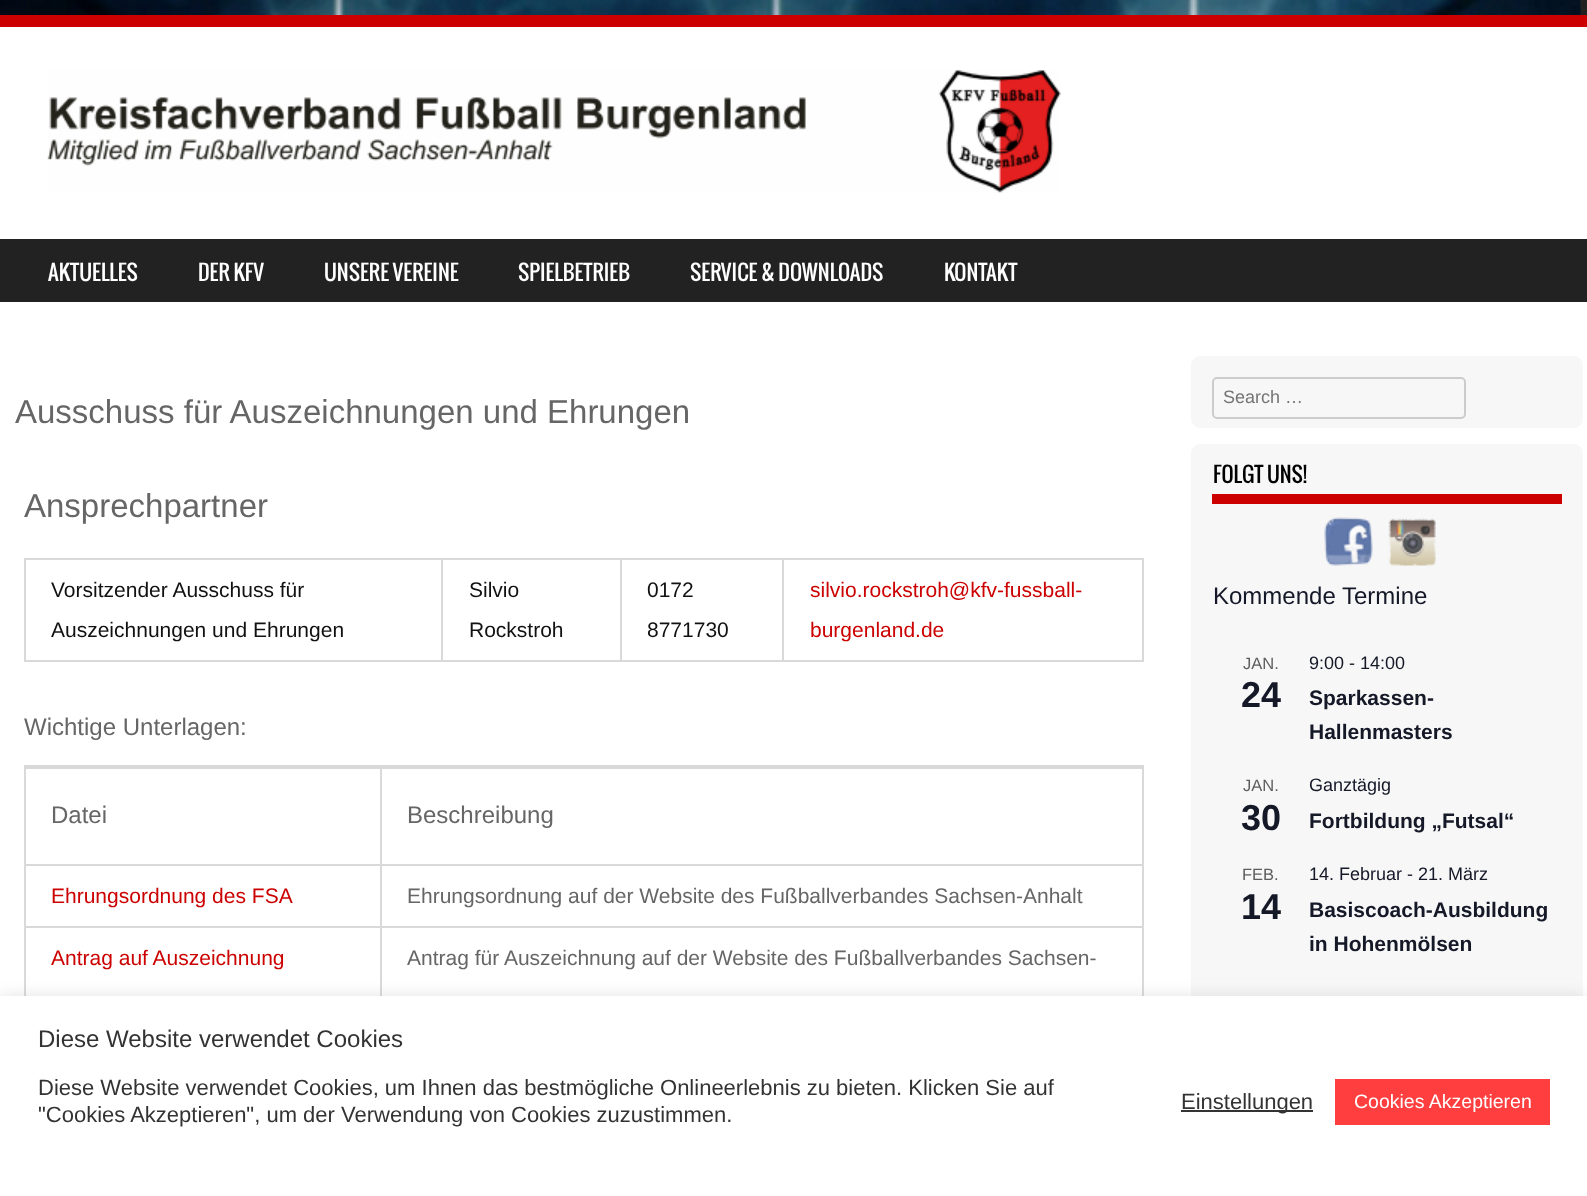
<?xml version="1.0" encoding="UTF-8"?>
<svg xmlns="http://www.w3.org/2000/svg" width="1587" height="1196">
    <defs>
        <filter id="blur1" x="-50%" y="-200%" width="200%" height="500%"><feGaussianBlur stdDeviation="7.5"/></filter>
    </defs>
    <rect width="100%" height="100%" fill="#FFFFFF"/>
    <image x="0" y="0" width="1587" height="15" href="img_01.png"/>
    <rect x="0" y="15" width="1587" height="12" fill="#CC0000"/>
    <image x="47" y="70" width="1014" height="123" href="img_02.png"/>
    <rect x="0" y="239" width="1587" height="63" fill="#222222"/>
    <text x="48" y="281" font-family="Oswald" font-size="21" fill="#FFFFFF">AKTUELLES</text>
    <text x="198" y="281" font-family="Oswald" font-size="21" fill="#FFFFFF">DER KFV</text>
    <text x="324" y="281" font-family="Oswald" font-size="21" fill="#FFFFFF">UNSERE VEREINE</text>
    <text x="518" y="281" font-family="Oswald" font-size="21" fill="#FFFFFF">SPIELBETRIEB</text>
    <text x="690" y="281" font-family="Oswald" font-size="21" fill="#FFFFFF">SERVICE &amp; DOWNLOADS</text>
    <text x="944" y="281" font-family="Oswald" font-size="21" fill="#FFFFFF">KONTAKT</text>
    <rect x="1191" y="356" width="392" height="72" rx="9" fill="#F7F7F7"/>
    <rect x="1213" y="378" width="252" height="40" rx="4" fill="none" stroke="#CCCCCC" stroke-width="2"/>
    <text x="1223" y="403" font-family="Liberation Sans" font-size="18" fill="#757575">Search …</text>
    <text x="15" y="423" font-family="Liberation Sans" font-size="33" fill="#666666">Ausschuss für Auszeichnungen und Ehrungen</text>
    <text x="24" y="517" font-family="Liberation Sans" font-size="33" fill="#666666">Ansprechpartner</text>
    <rect x="24" y="558" width="1119" height="2" fill="#D9D9D9"/>
    <rect x="1142" y="558" width="2" height="104" fill="#D9D9D9"/>
    <rect x="24" y="660" width="1119" height="2" fill="#D9D9D9"/>
    <rect x="24" y="558" width="2" height="104" fill="#D9D9D9"/>
    <text font-family="Liberation Sans" font-size="21" fill="#111111">
        <tspan x="51" y="597">Vorsitzender Ausschuss für</tspan>
        <tspan x="51" y="637">Auszeichnungen und Ehrungen</tspan>
    </text>
    <rect x="441" y="558" width="2" height="104" fill="#D9D9D9"/>
    <text font-family="Liberation Sans" font-size="21" fill="#111111">
        <tspan x="469" y="597">Silvio</tspan>
        <tspan x="469" y="637">Rockstroh</tspan>
    </text>
    <rect x="620" y="558" width="2" height="104" fill="#D9D9D9"/>
    <text font-family="Liberation Sans" font-size="21" fill="#111111">
        <tspan x="647" y="597">0172</tspan>
        <tspan x="647" y="637">8771730</tspan>
    </text>
    <rect x="782" y="558" width="2" height="104" fill="#D9D9D9"/>
    <text font-family="Liberation Sans" font-size="21" fill="#CC0000">
        <tspan x="810" y="597">silvio.rockstroh@kfv-fussball-</tspan>
        <tspan x="810" y="637">burgenland.de</tspan>
    </text>
    <text x="24" y="735" font-family="Liberation Sans" font-size="24" fill="#666666">Wichtige Unterlagen:</text>
    <rect x="24" y="765" width="1119" height="2" fill="#D9D9D9"/>
    <rect x="1142" y="765" width="2" height="231" fill="#D9D9D9"/>
    <rect x="24" y="767" width="1118" height="2" fill="#D9D9D9"/>
    <rect x="24" y="767" width="2" height="97" fill="#D9D9D9"/>
    <text x="51" y="823" font-family="Liberation Sans" font-size="24" fill="#666666">Datei</text>
    <rect x="380" y="767" width="2" height="97" fill="#D9D9D9"/>
    <text x="407" y="823" font-family="Liberation Sans" font-size="24" fill="#666666">Beschreibung</text>
    <rect x="24" y="864" width="1118" height="2" fill="#D9D9D9"/>
    <rect x="24" y="864" width="2" height="62" fill="#D9D9D9"/>
    <text x="51" y="903" font-family="Liberation Sans" font-size="21" fill="#CC0000">Ehrungsordnung des FSA</text>
    <rect x="380" y="864" width="2" height="62" fill="#D9D9D9"/>
    <text x="407" y="903" font-family="Liberation Sans" font-size="21" fill="#666666">Ehrungsordnung auf der Website des Fußballverbandes Sachsen-Anhalt</text>
    <rect x="24" y="926" width="1118" height="2" fill="#D9D9D9"/>
    <rect x="24" y="926" width="2" height="70" fill="#D9D9D9"/>
    <text x="51" y="965" font-family="Liberation Sans" font-size="21" fill="#CC0000">Antrag auf Auszeichnung</text>
    <rect x="380" y="926" width="2" height="70" fill="#D9D9D9"/>
    <text x="407" y="965" font-family="Liberation Sans" font-size="21" fill="#666666">Antrag für Auszeichnung auf der Website des Fußballverbandes Sachsen-</text>
    <rect x="1191" y="444" width="392" height="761" rx="9" fill="#F7F7F7"/>
    <rect x="1212" y="494" width="350" height="10" fill="#CC0000"/>
    <text x="1213" y="483" font-family="Oswald" font-size="21" fill="#000000">FOLGT UNS!</text>
    <image x="1324" y="517" width="49" height="49" href="img_03.png"/>
    <image x="1388" y="518" width="48" height="48" href="img_04.png"/>
    <text x="1213" y="604" font-family="Liberation Sans" font-size="24" fill="#141827">Kommende Termine</text>
    <text x="1243" y="669" font-family="Liberation Sans" font-size="16.5" fill="#5D5D5D">JAN.</text>
    <text x="1241" y="707" font-family="Liberation Sans" font-size="36" font-weight="700" fill="#141827">24</text>
    <text x="1309" y="669" font-family="Liberation Sans" font-size="18" fill="#141827">9:00 - 14:00</text>
    <text font-family="Liberation Sans" font-size="21" font-weight="700" fill="#141827">
        <tspan x="1309" y="705">Sparkassen-</tspan>
        <tspan x="1309" y="739">Hallenmasters</tspan>
    </text>
    <text x="1243" y="791" font-family="Liberation Sans" font-size="16.5" fill="#5D5D5D">JAN.</text>
    <text x="1241" y="830" font-family="Liberation Sans" font-size="36" font-weight="700" fill="#141827">30</text>
    <text x="1309" y="791" font-family="Liberation Sans" font-size="18" fill="#141827">Ganztägig</text>
    <text x="1309" y="828" font-family="Liberation Sans" font-size="21" font-weight="700" fill="#141827">Fortbildung „Futsal“</text>
    <text x="1242" y="880" font-family="Liberation Sans" font-size="16.5" fill="#5D5D5D">FEB.</text>
    <text x="1241" y="919" font-family="Liberation Sans" font-size="36" font-weight="700" fill="#141827">14</text>
    <text x="1309" y="880" font-family="Liberation Sans" font-size="18" fill="#141827">14. Februar - 21. März</text>
    <text font-family="Liberation Sans" font-size="21" font-weight="700" fill="#141827">
        <tspan x="1309" y="917">Basiscoach-Ausbildung</tspan>
        <tspan x="1309" y="951">in Hohenmölsen</tspan>
    </text>
    <rect x="0" y="995" width="1587" height="201" fill="#ACABAB" fill-opacity="0.3" filter="url(#blur1)"/>
    <rect x="0" y="996" width="1587" height="200" fill="#FFFFFF"/>
    <text x="38" y="1047" font-family="Liberation Sans" font-size="24" fill="#333333">Diese Website verwendet Cookies</text>
    <text font-family="Liberation Sans" font-size="22" fill="#333333">
        <tspan x="38" y="1095">Diese Website verwendet Cookies, um Ihnen das bestmögliche Onlineerlebnis zu bieten. Klicken Sie auf</tspan>
        <tspan x="38" y="1122">"Cookies Akzeptieren", um der Verwendung von Cookies zuzustimmen.</tspan>
    </text>
    <rect x="1181" y="1110" width="132" height="2" fill="#333333"/>
    <text x="1181" y="1109" font-family="Liberation Sans" font-size="22" fill="#333333">Einstellungen</text>
    <rect x="1335" y="1079" width="215" height="46" fill="#FF3F3F"/>
    <text x="1354" y="1108" font-family="Liberation Sans" font-size="19.5" fill="#FFFFFF">Cookies Akzeptieren</text>
</svg>
